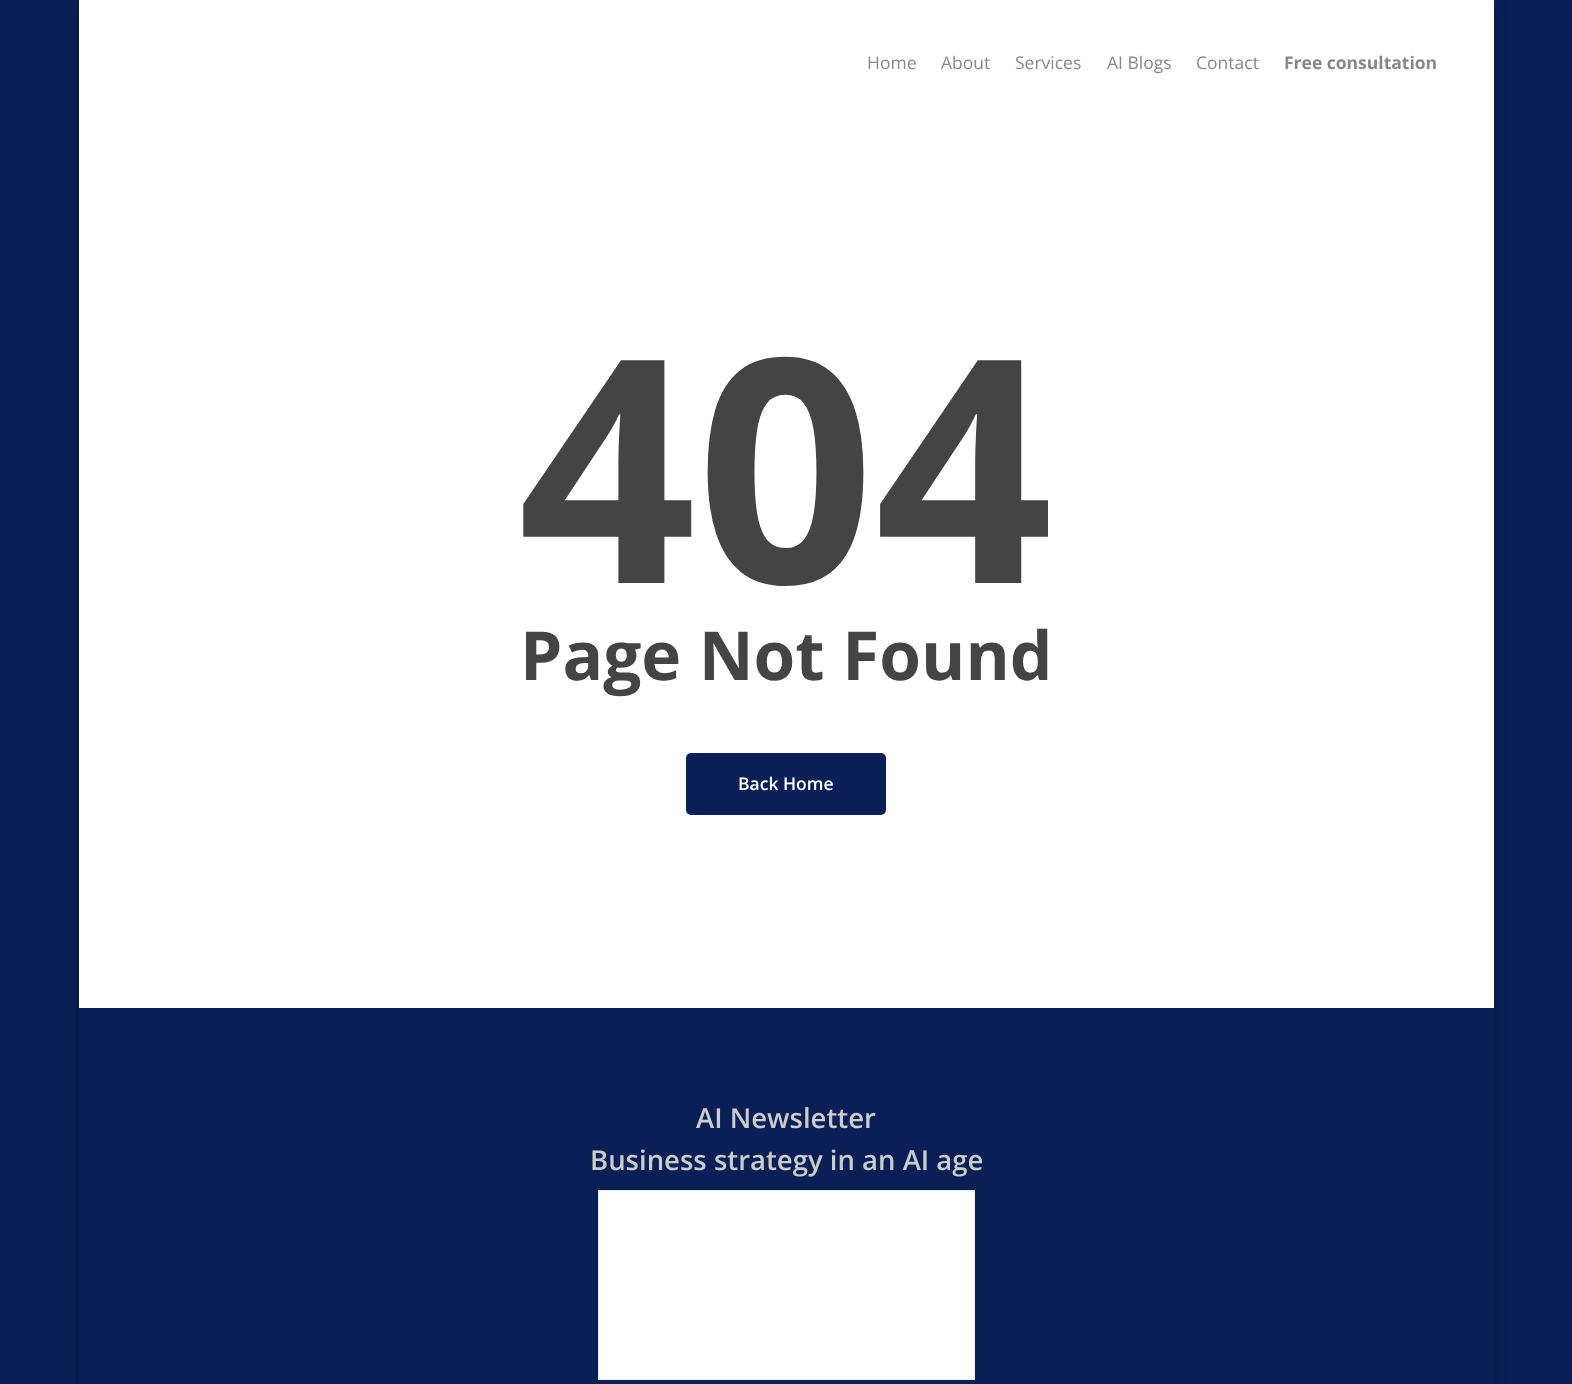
<?xml version="1.0" encoding="UTF-8"?>
<svg xmlns="http://www.w3.org/2000/svg" width="1572" height="1384">
    <defs>
        <filter id="blur1" x="-50%" y="-200%" width="200%" height="500%"><feGaussianBlur stdDeviation="9.5"/></filter>
    </defs>
    <rect width="100%" height="100%" fill="#091F55"/>
    <rect x="79" y="0" width="1415" height="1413" fill="#000000" fill-opacity="0.15" filter="url(#blur1)"/>
    <rect x="79" y="0" width="1415" height="1008" fill="#FFFFFF"/>
    <text x="867" y="69" font-family="Open Sans" font-size="17.5" fill="#888888">Home</text>
    <text x="941" y="69" font-family="Open Sans" font-size="17.5" fill="#888888">About</text>
    <text x="1015" y="69" font-family="Open Sans" font-size="17.5" fill="#888888">Services</text>
    <text x="1107" y="69" font-family="Open Sans" font-size="17.5" fill="#888888">AI Blogs</text>
    <text x="1196" y="69" font-family="Open Sans" font-size="17.5" fill="#888888">Contact</text>
    <text x="1284" y="69" font-family="Open Sans" font-size="17.5" font-weight="700" fill="#888888">Free consultation</text>
    <text x="518" y="583" font-family="Open Sans" font-size="312" font-weight="700" fill="#444444">404</text>
    <text x="520" y="680" font-family="Open Sans" font-size="67.5" font-weight="700" fill="#444444">Page Not Found</text>
    <rect x="686" y="753" width="200" height="62" rx="5" fill="#091F55"/>
    <text x="738" y="790" font-family="Open Sans" font-size="17.5" font-weight="600" fill="#FFFFFF">Back Home</text>
    <rect x="79" y="1008" width="1415" height="376" fill="#091F55"/>
    <text x="696" y="1128" font-family="Open Sans" font-size="27.5" font-weight="600" fill="#CCCCCC">AI Newsletter</text>
    <text x="590" y="1170" font-family="Open Sans" font-size="27.5" font-weight="600" fill="#CCCCCC">Business strategy in an AI age</text>
    <rect x="598.5" y="1190.5" width="376" height="189" fill="#FFFFFF" stroke="#EEEEEE"/>
</svg>
